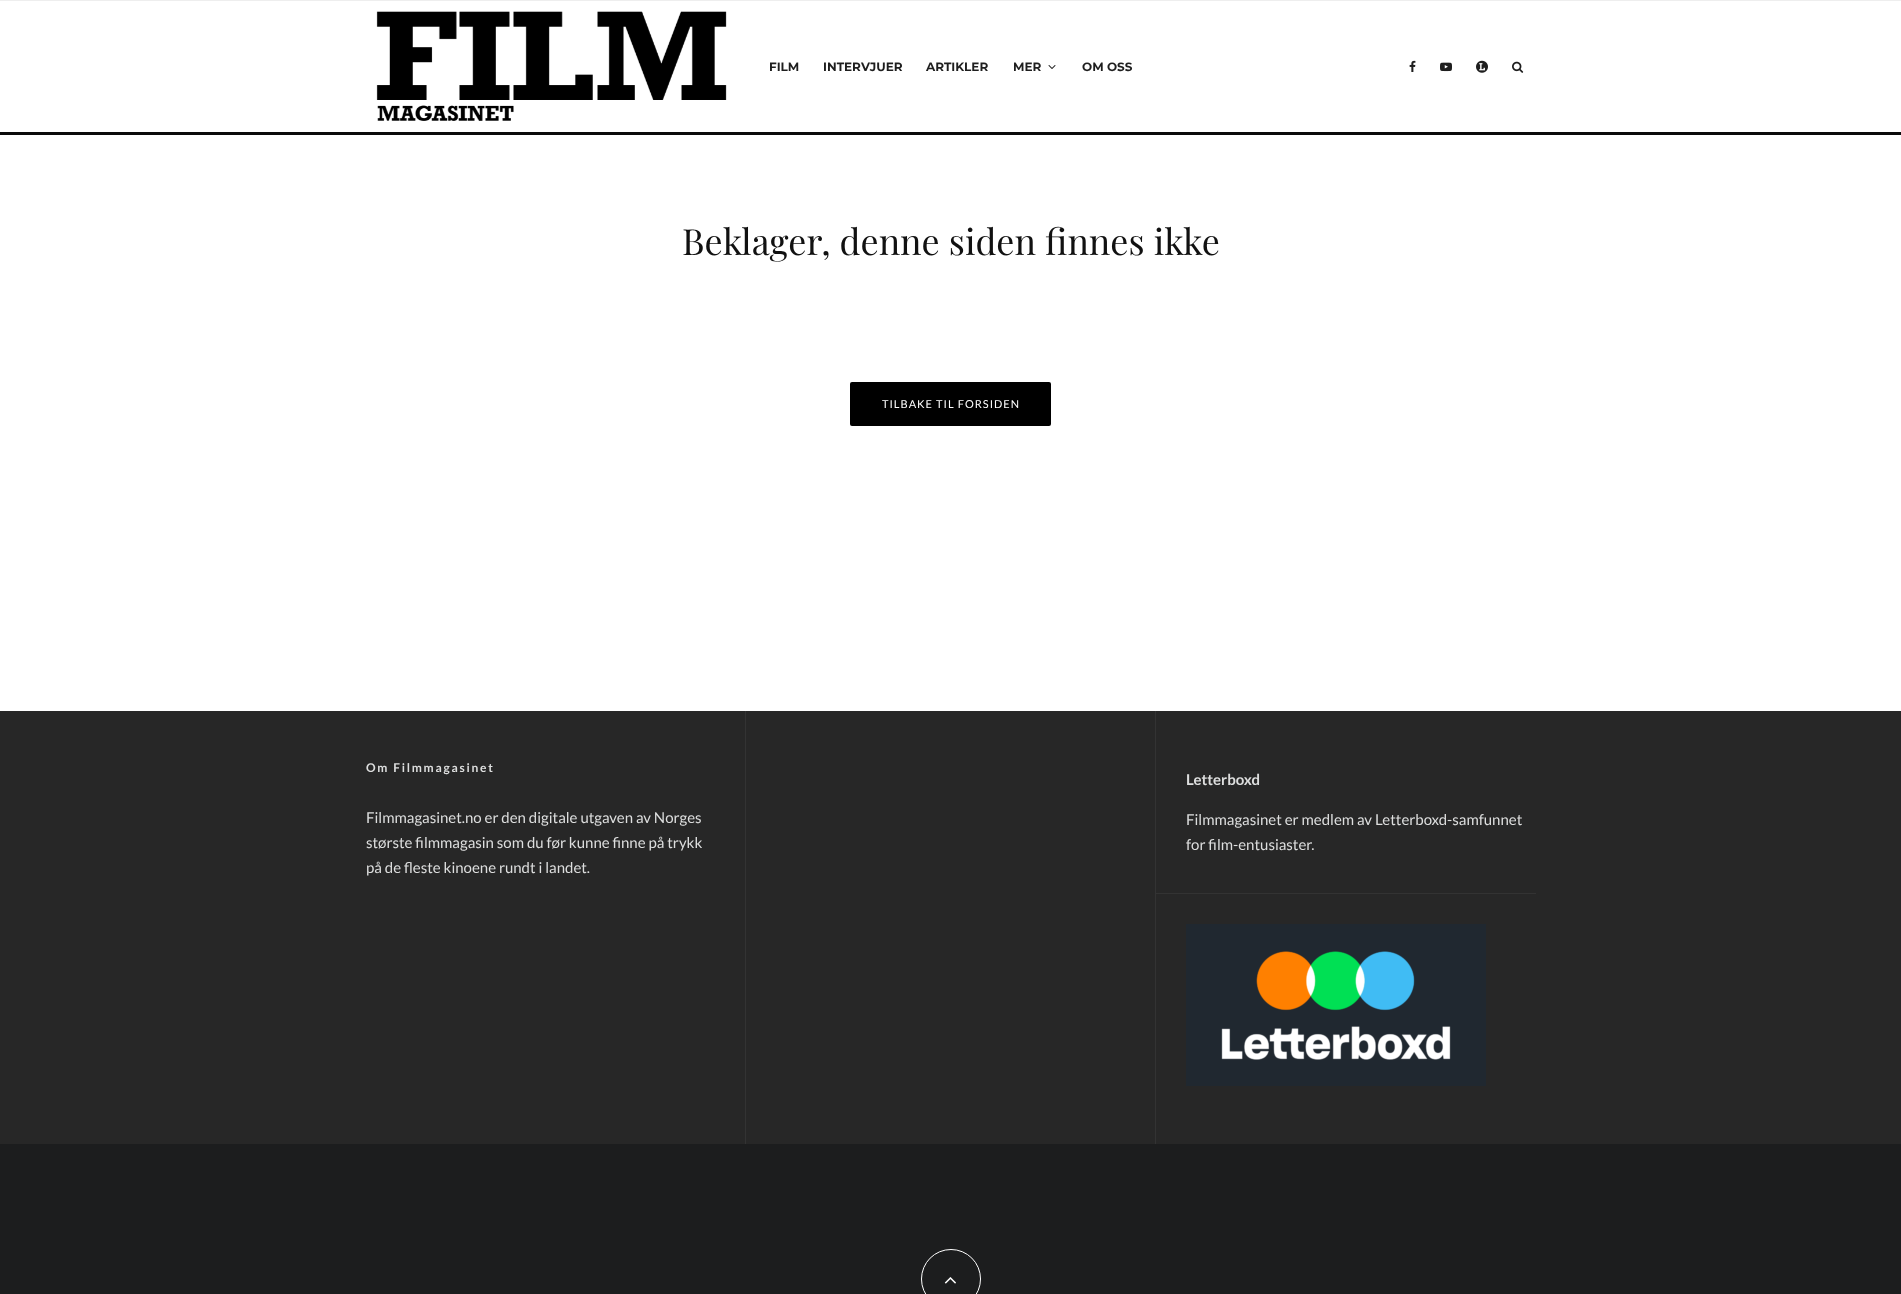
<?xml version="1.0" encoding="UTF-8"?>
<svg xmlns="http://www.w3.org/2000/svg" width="1901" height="1294">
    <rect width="100%" height="100%" fill="#FFFFFF"/>
    <rect x="0" y="0" width="1901" height="1" fill="#EEEEEE"/>
    <rect x="0" y="132" width="1901" height="3" fill="#0A0A0A"/>
    <image x="376" y="11" width="351" height="110" href="img_01.png"/>
    <text x="769" y="71" font-family="Montserrat" font-size="12" font-weight="700" fill="#1E1E1E">FILM</text>
    <text x="823" y="71" font-family="Montserrat" font-size="12" font-weight="700" fill="#1E1E1E">INTERVJUER</text>
    <text x="926" y="71" font-family="Montserrat" font-size="12" font-weight="700" fill="#1E1E1E">ARTIKLER</text>
    <text x="1013" y="71" font-family="Montserrat" font-size="12" font-weight="700" fill="#1E1E1E">MER</text>
    <image x="1048" y="65" width="8" height="4" href="img_02.png"/>
    <text x="1082" y="71" font-family="Montserrat" font-size="12" font-weight="700" fill="#1E1E1E">OM OSS</text>
    <image x="1409" y="60" width="7" height="12" href="img_03.png"/>
    <image x="1440" y="62" width="12" height="10" href="img_04.png"/>
    <image x="1476" y="60" width="12" height="13" href="img_05.png"/>
    <image x="1512" y="61" width="12" height="12" href="img_06.png"/>
    <text x="682" y="255" font-family="Playfair Display" font-size="36" fill="#111111">Beklager, denne siden finnes ikke</text>
    <rect x="850" y="382" width="201" height="44" rx="2" fill="#000000"/>
    <text x="882" y="408" font-family="Lato" font-size="11" letter-spacing="1" fill="#FFFFFF">TILBAKE TIL FORSIDEN</text>
    <rect x="0" y="711" width="1901" height="433" fill="#272727"/>
    <rect x="745" y="711" width="1" height="433" fill="#333333"/>
    <text x="366" y="772" font-family="Lato" font-size="12" font-weight="700" letter-spacing="1.75" fill="#DDDEDE">Om Filmmagasinet</text>
    <text font-family="Lato" font-size="15" fill="#DDDEDE">
        <tspan x="366" y="823">Filmmagasinet.no er den digitale utgaven av Norges</tspan>
        <tspan x="366" y="848">største filmmagasin som du før kunne finne på trykk</tspan>
        <tspan x="366" y="873">på de fleste kinoene rundt i landet.</tspan>
    </text>
    <rect x="1155" y="711" width="1" height="433" fill="#333333"/>
    <rect x="1156" y="893" width="380" height="1" fill="#333333"/>
    <text x="1186" y="785" font-family="Lato" font-size="15" font-weight="700" fill="#DDDEDE">Letterboxd</text>
    <text font-family="Lato" font-size="15" fill="#DDDEDE">
        <tspan x="1186" y="825">Filmmagasinet er medlem av Letterboxd-samfunnet</tspan>
        <tspan x="1186" y="850">for film-entusiaster.</tspan>
    </text>
    <image x="1186" y="924" width="300" height="162" href="img_07.png"/>
    <rect x="0" y="1144" width="1901" height="150" fill="#1C1D1E"/>
    <circle cx="951" cy="1279" r="29.5" fill="none" stroke="#FFFFFF"/>
    <image x="944" y="1277" width="12" height="7" href="img_08.png"/>
</svg>
